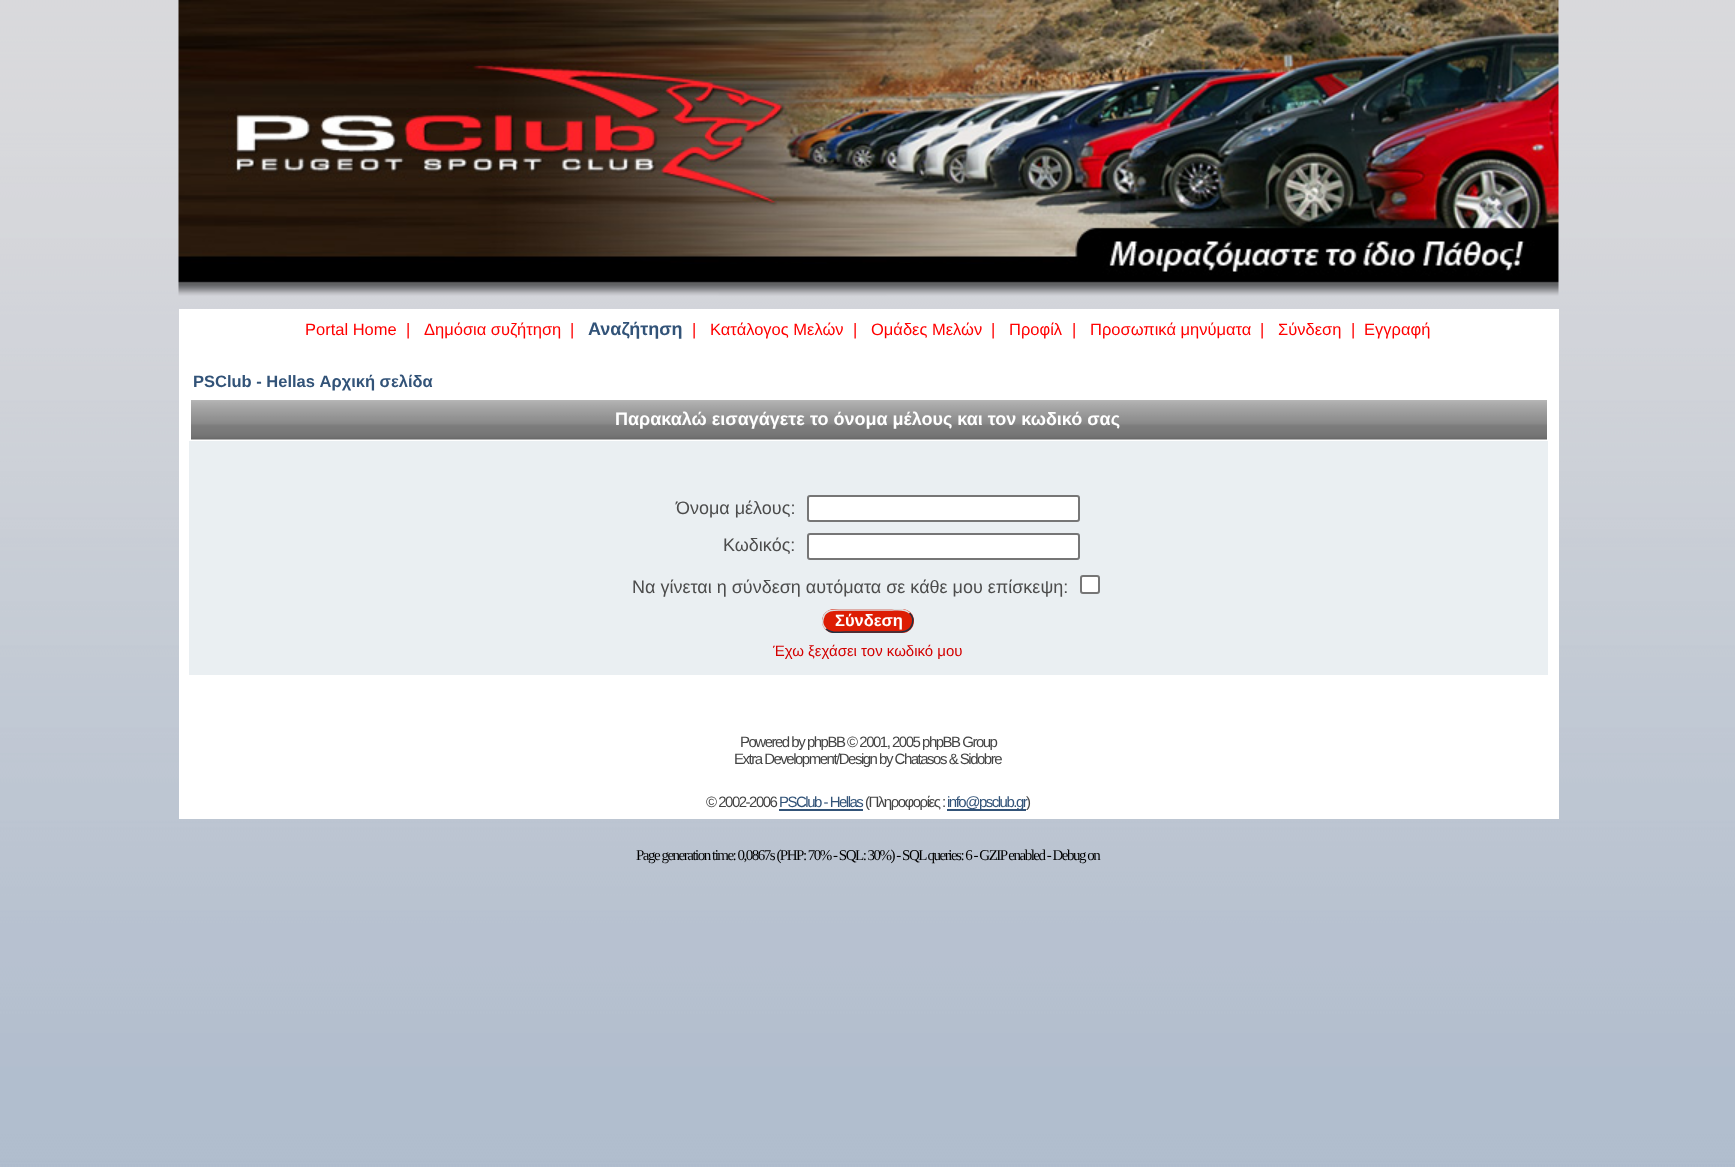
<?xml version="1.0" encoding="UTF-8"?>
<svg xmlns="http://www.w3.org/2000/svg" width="1735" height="1167">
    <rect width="100%" height="100%" fill="#FFFFFF"/>
    <image x="0" y="0" width="1735" height="1167" href="img_01.png"/>
    <image x="178" y="0" width="1381" height="296" href="img_02.png"/>
    <rect x="179" y="309" width="1380" height="510" fill="#FFFFFF"/>
    <text x="305" y="335" font-family="Liberation Sans" font-size="16.5" fill="#FF0000">Portal Home</text>
    <text x="406" y="335" font-family="Liberation Sans" font-size="16.5" fill="#FF0000">|</text>
    <text x="424" y="335" font-family="Liberation Sans" font-size="16.5" fill="#FF0000">Δημόσια συζήτηση</text>
    <text x="570" y="335" font-family="Liberation Sans" font-size="16.5" fill="#FF0000">|</text>
    <text x="588" y="335" font-family="Liberation Sans" font-size="18" font-weight="700" fill="#325378">Αναζήτηση</text>
    <text x="692" y="335" font-family="Liberation Sans" font-size="16.5" fill="#FF0000">|</text>
    <text x="710" y="335" font-family="Liberation Sans" font-size="16.5" fill="#FF0000">Κατάλογος Μελών</text>
    <text x="853" y="335" font-family="Liberation Sans" font-size="16.5" fill="#FF0000">|</text>
    <text x="871" y="335" font-family="Liberation Sans" font-size="16.5" fill="#FF0000">Ομάδες Μελών</text>
    <text x="991" y="335" font-family="Liberation Sans" font-size="16.5" fill="#FF0000">|</text>
    <text x="1009" y="335" font-family="Liberation Sans" font-size="16.5" fill="#FF0000">Προφίλ</text>
    <text x="1072" y="335" font-family="Liberation Sans" font-size="16.5" fill="#FF0000">|</text>
    <text x="1090" y="335" font-family="Liberation Sans" font-size="16.5" fill="#FF0000">Προσωπικά μηνύματα</text>
    <text x="1260" y="335" font-family="Liberation Sans" font-size="16.5" fill="#FF0000">|</text>
    <text x="1278" y="335" font-family="Liberation Sans" font-size="16.5" fill="#FF0000">Σύνδεση</text>
    <text x="1351" y="335" font-family="Liberation Sans" font-size="16.5" fill="#FF0000">|</text>
    <text x="1364" y="335" font-family="Liberation Sans" font-size="16.5" fill="#FF0000">Εγγραφή</text>
    <text x="193" y="387" font-family="Liberation Sans" font-size="16.5" font-weight="700" fill="#325378">PSClub - Hellas Αρχική σελίδα</text>
    <image x="191" y="400" width="1356" height="40" href="img_03.png"/>
    <text x="615" y="425" font-family="Liberation Sans" font-size="18" font-weight="700" fill="#FFFFFF">Παρακαλώ εισαγάγετε το όνομα μέλους και τον κωδικό σας</text>
    <rect x="189" y="441" width="1359" height="234" fill="#EAEFF2"/>
    <text x="676" y="514" font-family="Liberation Sans" font-size="18" fill="#4C4C4C">Όνομα μέλους:</text>
    <rect x="808" y="496" width="271" height="25" rx="2" fill="#FFFFFF" stroke="#767676" stroke-width="2"/>
    <text x="723" y="551" font-family="Liberation Sans" font-size="18" fill="#4C4C4C">Κωδικός:</text>
    <rect x="808" y="534" width="271" height="25" rx="2" fill="#FFFFFF" stroke="#767676" stroke-width="2"/>
    <text x="632" y="593" font-family="Liberation Sans" font-size="18" fill="#4C4C4C">Να γίνεται η σύνδεση αυτόματα σε κάθε μου επίσκεψη:</text>
    <rect x="1081" y="576" width="18" height="17" rx="2" fill="#FFFFFF" stroke="#767676" stroke-width="2"/>
    <rect x="822" y="609" width="92" height="24" rx="12" fill="#DD1D04"/>
    <path d="M 909.5 613 C 912 615.5 913.5 619.5 912.5 623 C 910.5 634 898.5 632 890 632 H 845 C 839 632 831 634 826 629" fill="none" stroke="#223344" stroke-width="1.5"/>
    <path d="M 826 629 C 823.5 626.5 822 622.5 823 619 C 825 608 837 610 845 610 H 890 C 896.5 610 904.5 608 909.5 613" fill="none" stroke="#DDDEDF" stroke-width="1.5"/>
    <text x="835" y="626" font-family="Liberation Sans" font-size="16.5" font-weight="700" fill="#FFFFFF">Σύνδεση</text>
    <text x="773" y="656" font-family="Liberation Sans" font-size="15" fill="#D30000">Έχω ξεχάσει τον κωδικό μου</text>
    <text x="740" y="747" font-family="Liberation Sans" font-size="15" letter-spacing="-1.5" fill="#444444">Powered by phpBB © 2001, 2005 phpBB Group</text>
    <text x="734" y="764" font-family="Liberation Sans" font-size="15" letter-spacing="-1.5" fill="#444444">Extra Development/Design by Chatasos &amp; Sidobre</text>
    <text x="706" y="807" font-family="Liberation Sans" font-size="15" letter-spacing="-1.5" fill="#444444">© 2002-2006</text>
    <text x="779" y="807" font-family="Liberation Sans" font-size="15" letter-spacing="-1.5" fill="#325378">PSClub - Hellas</text>
    <rect x="779" y="809" width="84" height="2" fill="#325378"/>
    <text x="865" y="807" font-family="Liberation Sans" font-size="15" letter-spacing="-1.5" fill="#444444">(Πληροφορίες :</text>
    <rect x="947" y="809" width="79" height="2" fill="#325378"/>
    <text x="947" y="807" font-family="Liberation Sans" font-size="15" letter-spacing="-1.5" fill="#325378">info@psclub.gr</text>
    <text x="1026" y="807" font-family="Liberation Sans" font-size="15" letter-spacing="-1.5" fill="#444444">)</text>
    <text x="636" y="860" font-family="Liberation Serif" font-size="15" letter-spacing="-1.5" fill="#000000">Page generation time: 0,0867s (PHP: 70% - SQL: 30%) - SQL queries: 6 - GZIP enabled - Debug on</text>
</svg>
